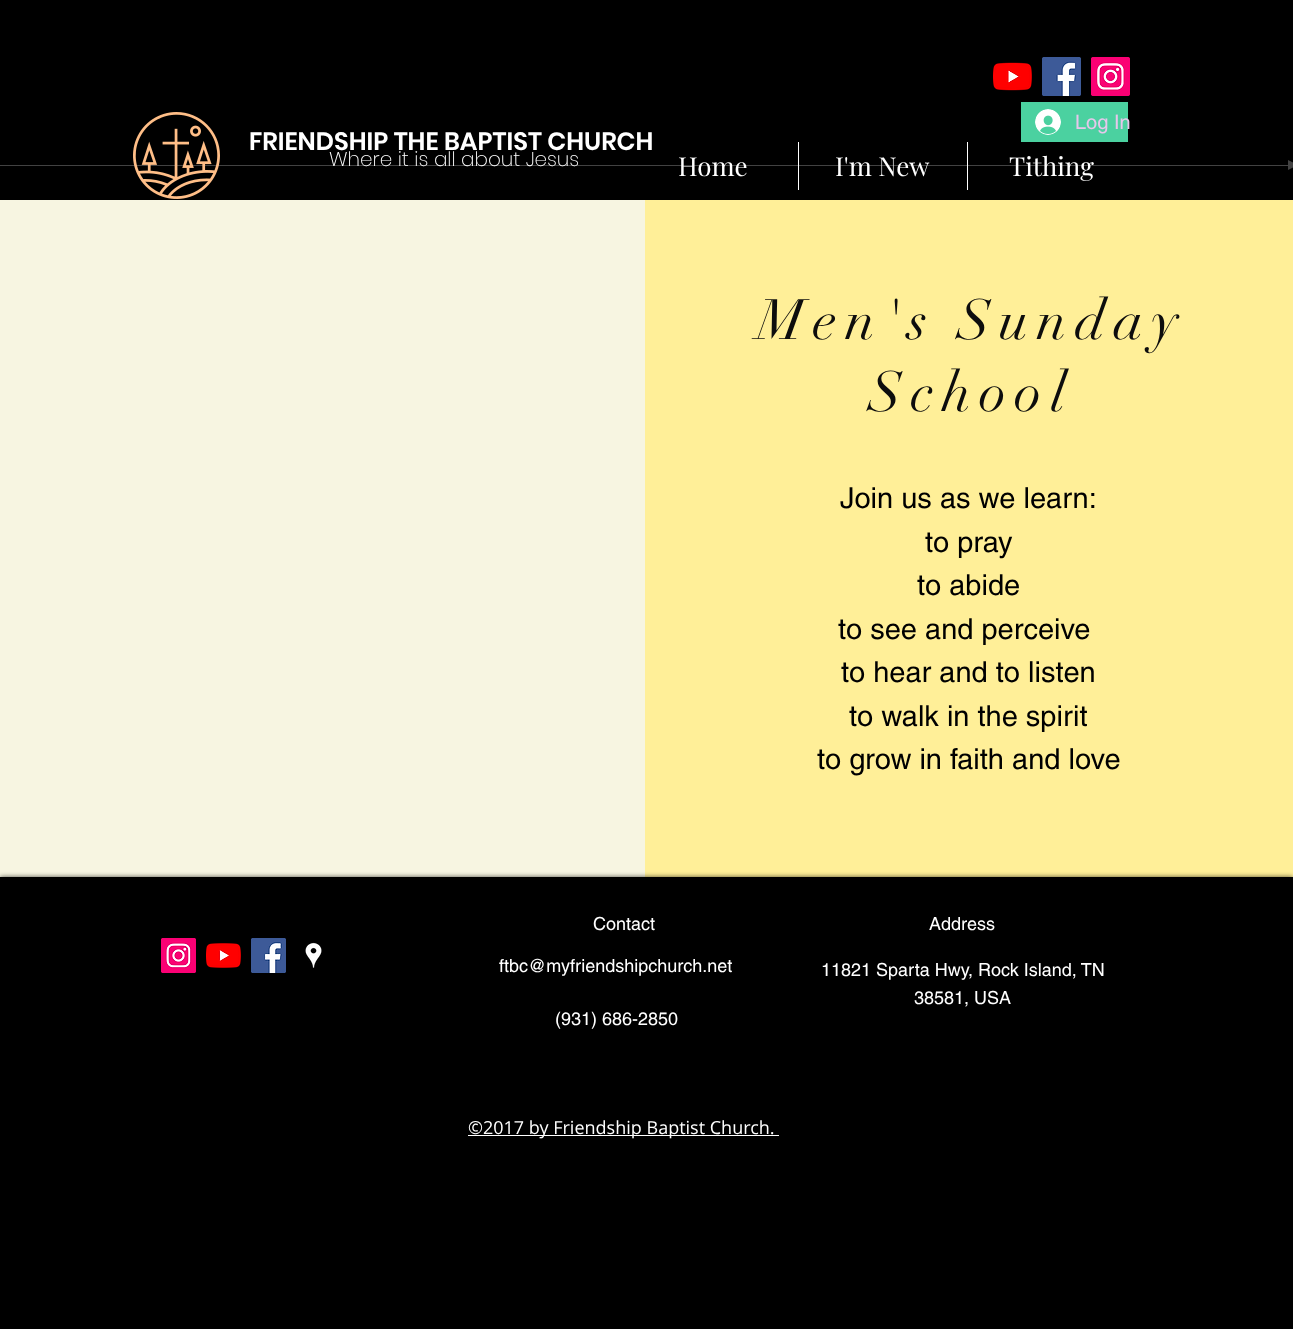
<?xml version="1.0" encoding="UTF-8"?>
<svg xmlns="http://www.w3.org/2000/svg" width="1293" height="1329">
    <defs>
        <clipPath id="clip1"><path d="M 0 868 H 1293 V 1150 H 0 Z M 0 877 H 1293 V 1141 H 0 Z" clip-rule="evenodd"/></clipPath>
        <filter id="blur1" x="-50%" y="-200%" width="200%" height="500%"><feGaussianBlur stdDeviation="2.5"/></filter>
    </defs>
    <rect width="100%" height="100%" fill="#000000"/>
    <image x="993" y="62" width="39" height="29" href="img_01.png"/>
    <image x="1042" y="57" width="39" height="39" href="img_02.png"/>
    <image x="1091" y="57" width="39" height="39" href="img_03.png"/>
    <rect x="1021" y="102" width="107" height="40" fill="#4BD1A0"/>
    <image x="1035" y="109" width="26" height="26" href="img_04.png"/>
    <text x="1075" y="129" font-family="helvetica" font-size="20" fill="#E6C7EB">Log In</text>
    <rect x="0" y="165" width="1293" height="1" fill="#424242"/>
    <image x="133" y="112" width="87" height="87" href="img_05.png"/>
    <text x="249" y="150" font-family="Poppins" font-size="25" font-weight="600" fill="#FFFFFF">FRIENDSHIP THE BAPTIST CHURCH</text>
    <text x="329" y="166" font-family="Poppins" font-size="20" font-weight="200" fill="#FFFFFF">Where it is all about Jesus</text>
    <text x="678" y="176" font-family="Playfair Display" font-size="26" fill="#FFFFFF">Home</text>
    <rect x="798" y="142" width="1" height="48" fill="#FFFFFF"/>
    <text x="835" y="176" font-family="Playfair Display" font-size="26" fill="#FFFFFF">I'm New</text>
    <rect x="967" y="142" width="1" height="48" fill="#FFFFFF"/>
    <text x="1009" y="176" font-family="Playfair Display" font-size="26" fill="#FFFFFF">Tithing</text>
    <path d="M 1288 170 V 160 L 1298 165 Z" fill="#424242"/>
    <rect x="0" y="200" width="645" height="677" fill="#F7F5E1"/>
    <rect x="645" y="200" width="648" height="677" fill="#FFEF98"/>
    <text x="757" y="339" font-family="didot" font-size="56" letter-spacing="8.4" fill="#0D0D0D">Men's Sunday</text>
    <text x="869" y="411" font-family="didot" font-size="56" letter-spacing="8.4" fill="#0D0D0D">School</text>
    <text x="840" y="508" font-family="helvetica" font-size="29" fill="#000000">Join us as we learn:</text>
    <text x="925" y="552" font-family="helvetica" font-size="29" fill="#000000">to pray</text>
    <text x="917" y="595" font-family="helvetica" font-size="29" fill="#000000">to abide</text>
    <text x="838" y="639" font-family="helvetica" font-size="29" fill="#000000">to see and perceive</text>
    <text x="841" y="682" font-family="helvetica" font-size="29" fill="#000000">to hear and to listen</text>
    <text x="849" y="726" font-family="helvetica" font-size="29" fill="#000000">to walk in the spirit</text>
    <text x="817" y="769" font-family="helvetica" font-size="29" fill="#000000">to grow in faith and love</text>
    <g clip-path="url(#clip1)">
        <rect x="0" y="877" width="1293" height="264" fill="#000000" fill-opacity="0.7" filter="url(#blur1)"/>
    </g>
    <text x="593" y="930" font-family="helvetica" font-size="18" fill="#FFFFFF">Contact</text>
    <text x="929" y="930" font-family="helvetica" font-size="18" fill="#FFFFFF">Address</text>
    <image x="161" y="938" width="35" height="35" href="img_06.png"/>
    <image x="206" y="943" width="35" height="25" href="img_07.png"/>
    <image x="251" y="938" width="35" height="35" href="img_08.png"/>
    <image x="305" y="942" width="17" height="26" href="img_09.png"/>
    <text x="499" y="972" font-family="helvetica" font-size="18" fill="#FFFFFF">ftbc@myfriendshipchurch.net</text>
    <text x="821" y="976" font-family="helvetica" font-size="18" fill="#FFFFFF">11821 Sparta Hwy, Rock Island, TN</text>
    <text x="914" y="1004" font-family="helvetica" font-size="18" fill="#FFFFFF">38581, USA</text>
    <text x="555" y="1025" font-family="helvetica" font-size="18" fill="#FFFFFF">(931) 686-2850</text>
    <rect x="468" y="1135" width="311" height="1" fill="#FFFFFF"/>
    <text x="468" y="1134" font-family="Open Sans" font-size="18" fill="#FFFFFF">©2017 by Friendship Baptist Church.</text>
</svg>
